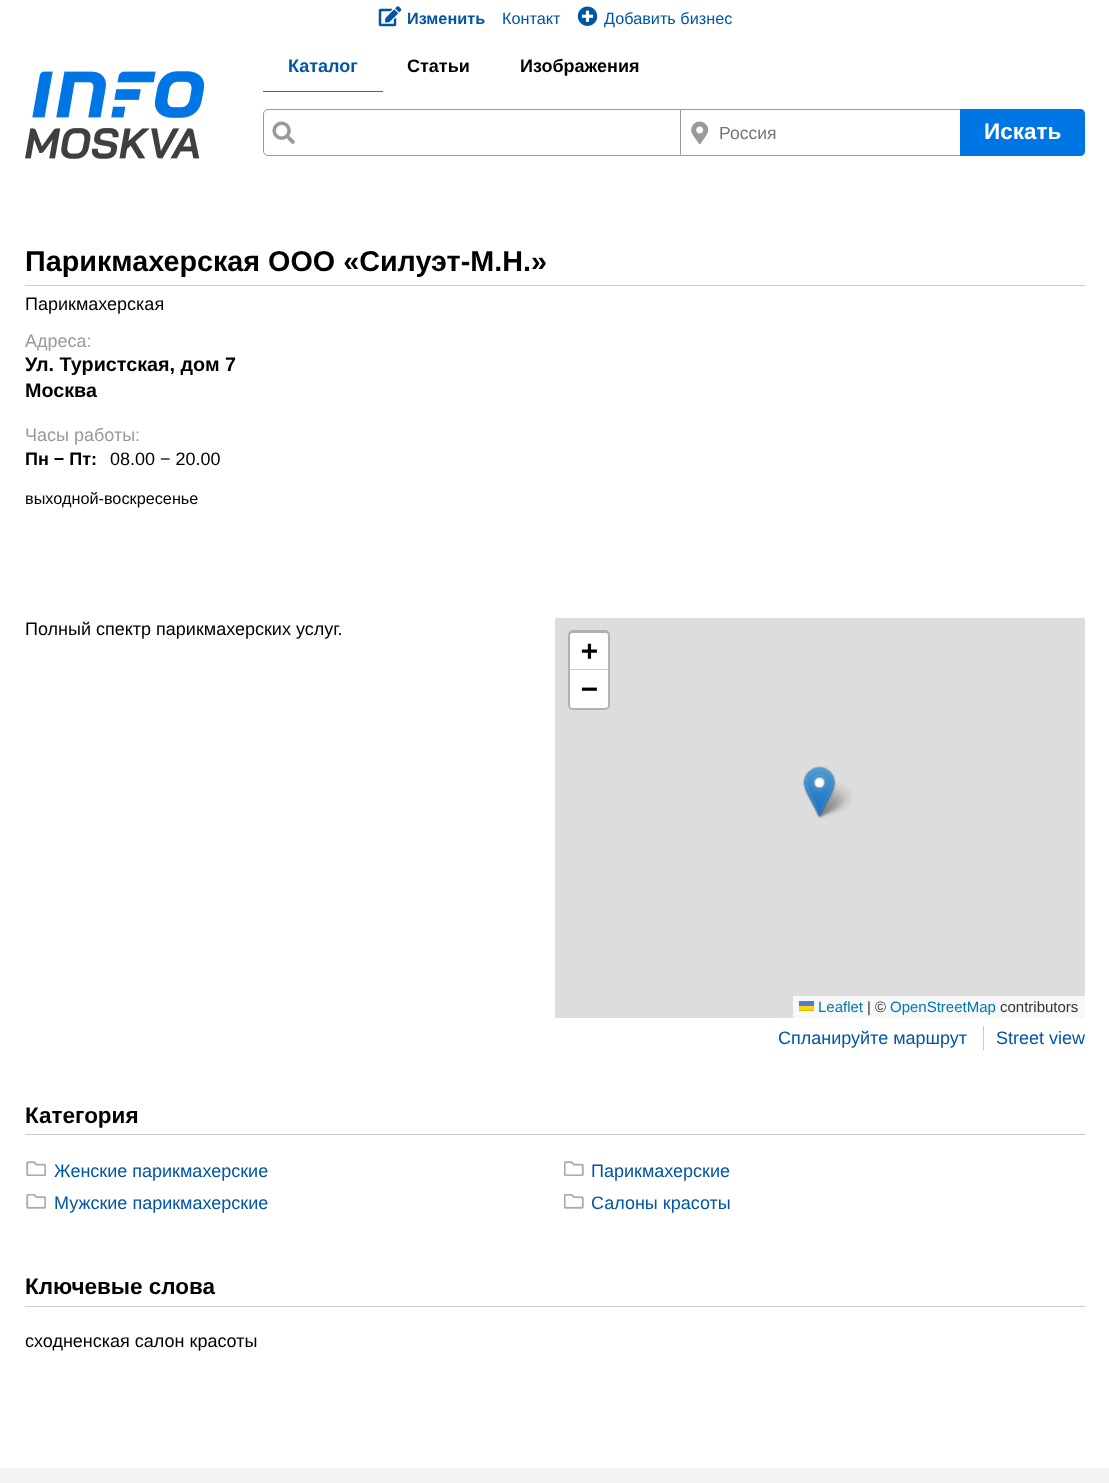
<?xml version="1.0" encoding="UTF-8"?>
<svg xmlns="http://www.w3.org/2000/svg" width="1109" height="1483">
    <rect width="100%" height="100%" fill="#FFFFFF"/>
    <image x="378" y="6" width="24" height="21" href="img_01.png"/>
    <text x="407" y="24" font-family="Liberation Sans" font-size="16.25" font-weight="700" fill="#0055A5">Изменить</text>
    <text x="502" y="24" font-family="Liberation Sans" font-size="16.25" fill="#0055A5">Контакт</text>
    <image x="577" y="6" width="21" height="20" href="img_02.png"/>
    <text x="604" y="24" font-family="Liberation Sans" font-size="16.25" fill="#0055A5">Добавить бизнес</text>
    <image x="25" y="71" width="179" height="88" href="img_03.png"/>
    <text x="288" y="72" font-family="Liberation Sans" font-size="18" font-weight="700" fill="#0055A5">Каталог</text>
    <rect x="263" y="91" width="120" height="1" fill="#0076E4"/>
    <text x="407" y="72" font-family="Liberation Sans" font-size="18" font-weight="700" fill="#000000">Статьи</text>
    <text x="520" y="72" font-family="Liberation Sans" font-size="18" font-weight="700" fill="#000000">Изображения</text>
    <path d="M 268 109.5 H 680.5 V 155.5 H 268 C 265.5 155.5 263.5 153.5 263.5 151 V 114 C 263.5 111.5 265.5 109.5 268 109.5 Z" fill="none" stroke="#999999"/>
    <image x="272" y="121" width="23" height="23" href="img_04.png"/>
    <image x="691" y="121" width="18" height="23" href="img_05.png"/>
    <rect x="681" y="109" width="280" height="1" fill="#999999"/>
    <rect x="681" y="155" width="280" height="1" fill="#999999"/>
    <text x="719" y="139" font-family="Liberation Sans" font-size="17.5" fill="#757575">Россия</text>
    <path d="M 960 109 H 1080 C 1083 109 1085 111 1085 114 V 151 C 1085 154 1083 156 1080 156 H 960 Z" fill="#0076E4"/>
    <text x="984" y="139" font-family="Liberation Sans" font-size="22.5" font-weight="700" fill="#FFFFFF">Искать</text>
    <rect x="25" y="285" width="1060" height="1" fill="#CCCCCC"/>
    <text x="25" y="271" font-family="Liberation Sans" font-size="28.75" font-weight="700" fill="#000000">Парикмахерская ООО «Силуэт-М.Н.»</text>
    <text x="25" y="310" font-family="Liberation Sans" font-size="18" fill="#000000">Парикмахерская</text>
    <text x="25" y="347" font-family="Liberation Sans" font-size="18" fill="#999999">Адреса:</text>
    <text font-family="Liberation Sans" font-size="19.75" font-weight="700" fill="#000000">
        <tspan x="25" y="371">Ул. Туристская, дом 7</tspan>
        <tspan x="25" y="397">Москва</tspan>
    </text>
    <text x="25" y="441" font-family="Liberation Sans" font-size="18" fill="#999999">Часы работы:</text>
    <text x="25" y="465" font-family="Liberation Sans" font-size="18" font-weight="700" fill="#000000">Пн − Пт:</text>
    <text x="110" y="465" font-family="Liberation Sans" font-size="18" fill="#000000">08.00 − 20.00</text>
    <text x="25" y="504" font-family="Liberation Sans" font-size="16.25" fill="#000000">выходной-воскресенье</text>
    <text x="25" y="635" font-family="Liberation Sans" font-size="18" fill="#000000">Полный спектр парикмахерских услуг.</text>
    <rect x="555" y="618" width="530" height="400" fill="#DDDDDD"/>
    <rect x="569.5" y="631.5" width="39" height="77" rx="3.5" fill="none" stroke="#B1B1B1" stroke-width="3"/>
    <path d="M 572.5 633 H 605.5 C 607 633 608 634 608 635.5 V 670 H 570 V 635.5 C 570 634 571 633 572.5 633 Z" fill="#FFFFFF"/>
    <rect x="570" y="669" width="38" height="1" fill="#CCCCCC"/>
    <text x="581" y="660" font-family="DejaVu Sans Mono" font-size="28" font-weight="700" fill="#000000">+</text>
    <path d="M 570 670 H 608 V 705.5 C 608 707 607 708 605.5 708 H 572.5 C 571 708 570 707 570 705.5 Z" fill="#FFFFFF"/>
    <text x="581" y="698" font-family="DejaVu Sans Mono" font-size="28" font-weight="700" fill="#000000">−</text>
    <rect x="793" y="996" width="292" height="22" fill="#F8F8F8"/>
    <text x="818" y="1012" font-family="Liberation Sans" font-size="15" fill="#0078A8">Leaflet</text>
    <rect x="799" y="1001" width="15" height="5" fill="#4C7BE1"/>
    <rect x="799" y="1006" width="15" height="4" fill="#FFD500"/>
    <rect x="799" y="1010" width="15" height="1" fill="#E0BC00"/>
    <text x="867" y="1012" font-family="Liberation Sans" font-size="15" fill="#333333">| ©</text>
    <text x="890" y="1012" font-family="Liberation Sans" font-size="15" fill="#0078A8">OpenStreetMap</text>
    <text x="1000" y="1012" font-family="Liberation Sans" font-size="15" fill="#333333">contributors</text>
    <image x="815" y="782" width="37" height="36" href="img_07.png"/>
    <image x="803" y="766" width="33" height="52" href="img_06.png"/>
    <text x="778" y="1044" font-family="Liberation Sans" font-size="18" fill="#0055A5">Спланируйте маршрут</text>
    <rect x="983" y="1026" width="1" height="24" fill="#CCCCCC"/>
    <text x="996" y="1044" font-family="Liberation Sans" font-size="18" fill="#0055A5">Street view</text>
    <rect x="25" y="1134" width="1060" height="1" fill="#CCCCCC"/>
    <text x="25" y="1123" font-family="Liberation Sans" font-size="22.5" font-weight="700" fill="#000000">Категория</text>
    <image x="26" y="1161" width="20" height="15" href="img_08.png"/>
    <text x="54" y="1177" font-family="Liberation Sans" font-size="18" fill="#0055A5">Женские парикмахерские</text>
    <image x="564" y="1161" width="20" height="15" href="img_09.png"/>
    <text x="591" y="1177" font-family="Liberation Sans" font-size="18" fill="#0055A5">Парикмахерские</text>
    <image x="26" y="1194" width="20" height="15" href="img_10.png"/>
    <text x="54" y="1209" font-family="Liberation Sans" font-size="18" fill="#0055A5">Мужские парикмахерские</text>
    <image x="564" y="1194" width="20" height="15" href="img_11.png"/>
    <text x="591" y="1209" font-family="Liberation Sans" font-size="18" fill="#0055A5">Салоны красоты</text>
    <rect x="25" y="1306" width="1060" height="1" fill="#CCCCCC"/>
    <text x="25" y="1294" font-family="Liberation Sans" font-size="22.5" font-weight="700" fill="#000000">Ключевые слова</text>
    <text x="25" y="1347" font-family="Liberation Sans" font-size="18" fill="#000000">сходненская салон красоты</text>
    <rect x="0" y="1468" width="1109" height="15" fill="#F2F2F2"/>
</svg>
